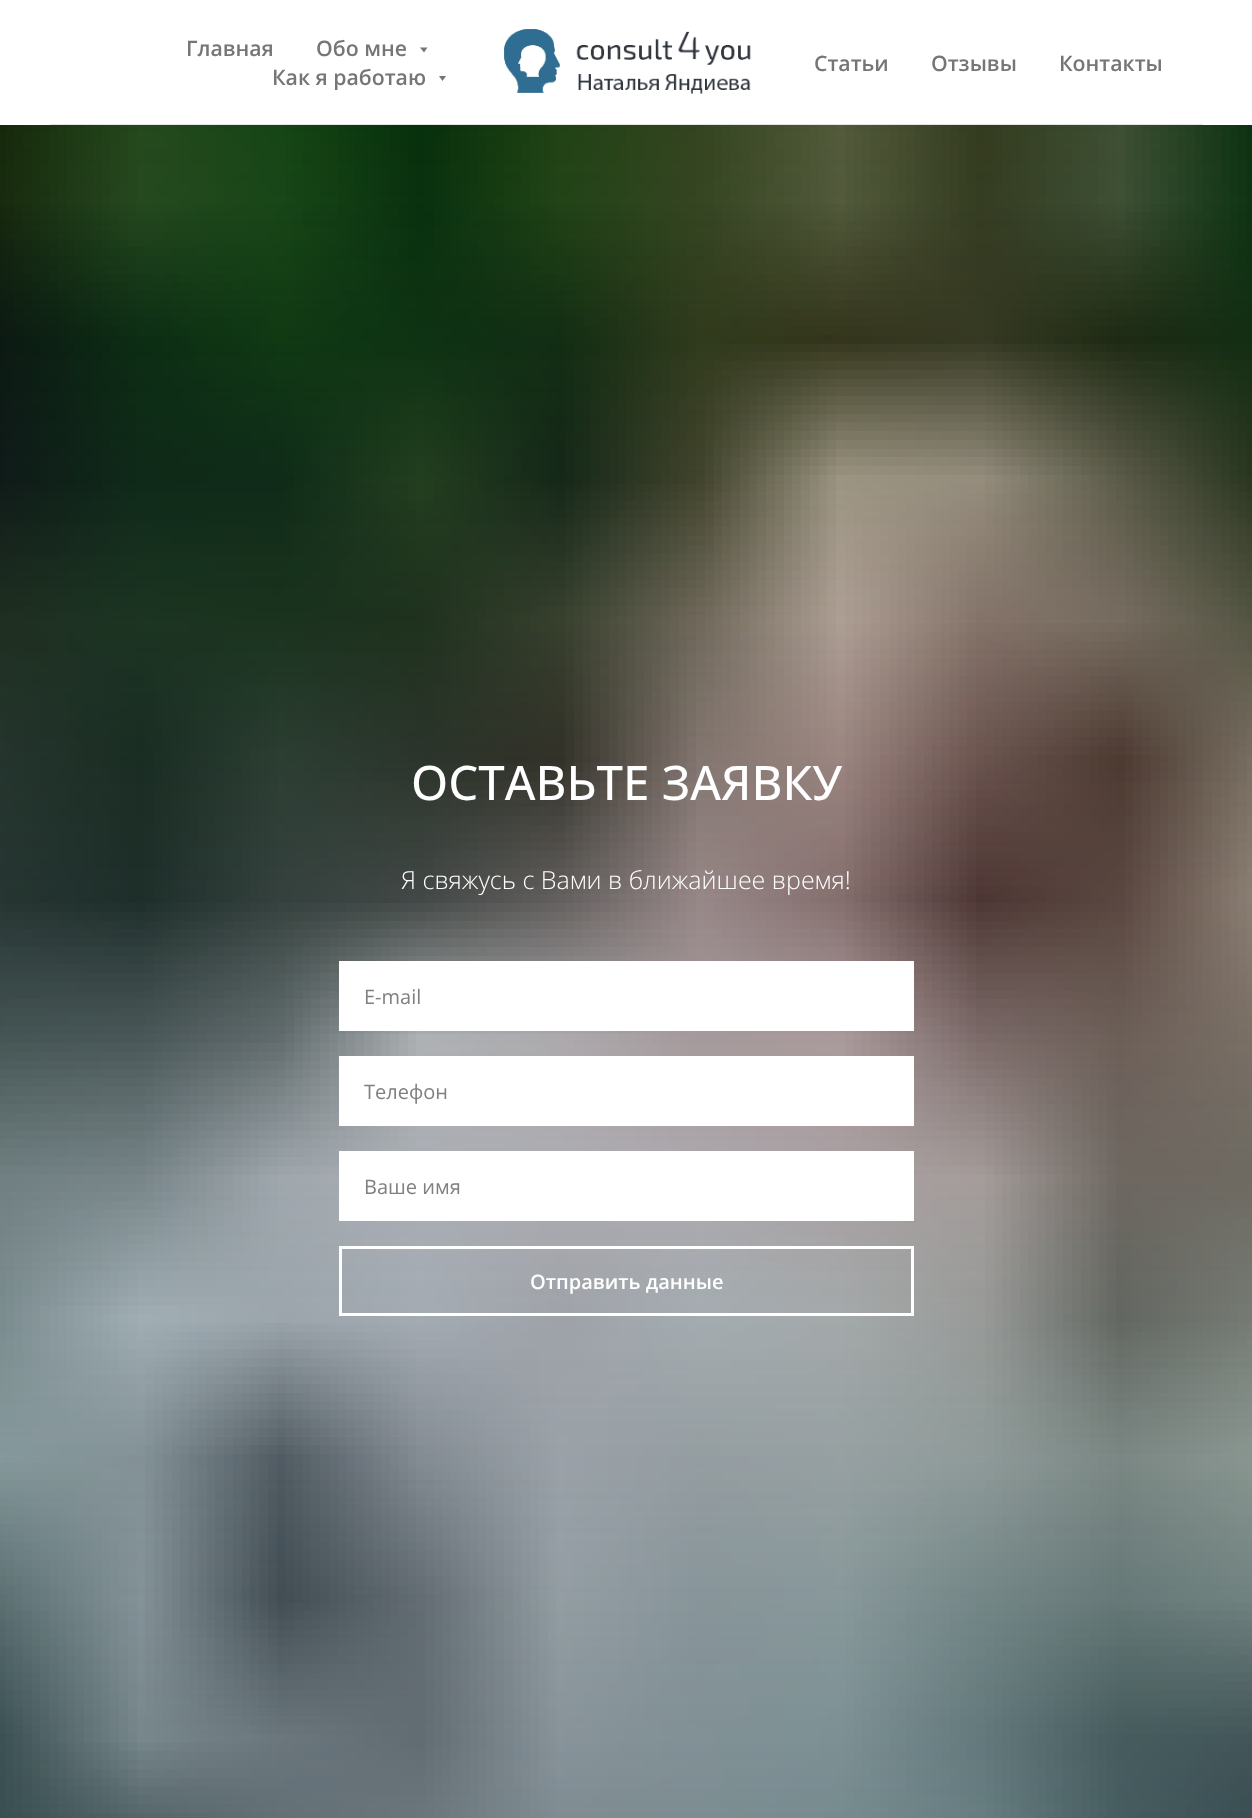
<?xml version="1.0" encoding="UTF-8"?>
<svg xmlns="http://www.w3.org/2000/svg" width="1252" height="1818">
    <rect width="100%" height="100%" fill="#FFFFFF"/>
    <text x="186" y="56" font-family="Open Sans" font-size="21.25" font-weight="600" fill="#767676">Главная</text>
    <text x="316" y="56" font-family="Open Sans" font-size="21.25" font-weight="600" fill="#767676">Обо мне</text>
    <path d="M 420 47.5 H 427.5 L 424 52.5 Z" fill="#767676"/>
    <text x="272" y="85" font-family="Open Sans" font-size="21.25" font-weight="600" fill="#767676">Как я работаю</text>
    <path d="M 439 76 H 446 L 442.5 81 Z" fill="#767676"/>
    <image x="504" y="29" width="247" height="65" href="img_01.png"/>
    <text x="814" y="71" font-family="Open Sans" font-size="21.25" font-weight="600" fill="#767676">Статьи</text>
    <text x="931" y="71" font-family="Open Sans" font-size="21.25" font-weight="600" fill="#767676">Отзывы</text>
    <text x="1059" y="71" font-family="Open Sans" font-size="21.25" font-weight="600" fill="#767676">Контакты</text>
    <rect x="50" y="124" width="1153" height="1" fill="#E3E3E3"/>
    <image x="0" y="125" width="1252" height="1693" href="img_02.png"/>
    <text x="411" y="800" font-family="Open Sans" font-size="47.5" font-weight="500" fill="#FFFFFF">ОСТАВЬТЕ ЗАЯВКУ</text>
    <text x="401" y="889" font-family="Open Sans" font-size="25" font-weight="300" fill="#FFFFFF">Я свяжусь с Вами в ближайшее время!</text>
    <rect x="339" y="961" width="575" height="70" fill="#FFFFFF"/>
    <text x="364" y="1004" font-family="Open Sans" font-size="20" fill="#808080">E-mail</text>
    <rect x="339" y="1056" width="575" height="70" fill="#FFFFFF"/>
    <text x="364" y="1099" font-family="Open Sans" font-size="20" fill="#808080">Телефон</text>
    <rect x="339" y="1151" width="575" height="70" fill="#FFFFFF"/>
    <text x="364" y="1194" font-family="Open Sans" font-size="20" fill="#808080">Ваше имя</text>
    <rect x="340.5" y="1247.5" width="572" height="67" fill="none" stroke="#FFFFFF" stroke-width="3"/>
    <text x="530" y="1289" font-family="Open Sans" font-size="20" font-weight="600" fill="#FFFFFF">Отправить данные</text>
</svg>
